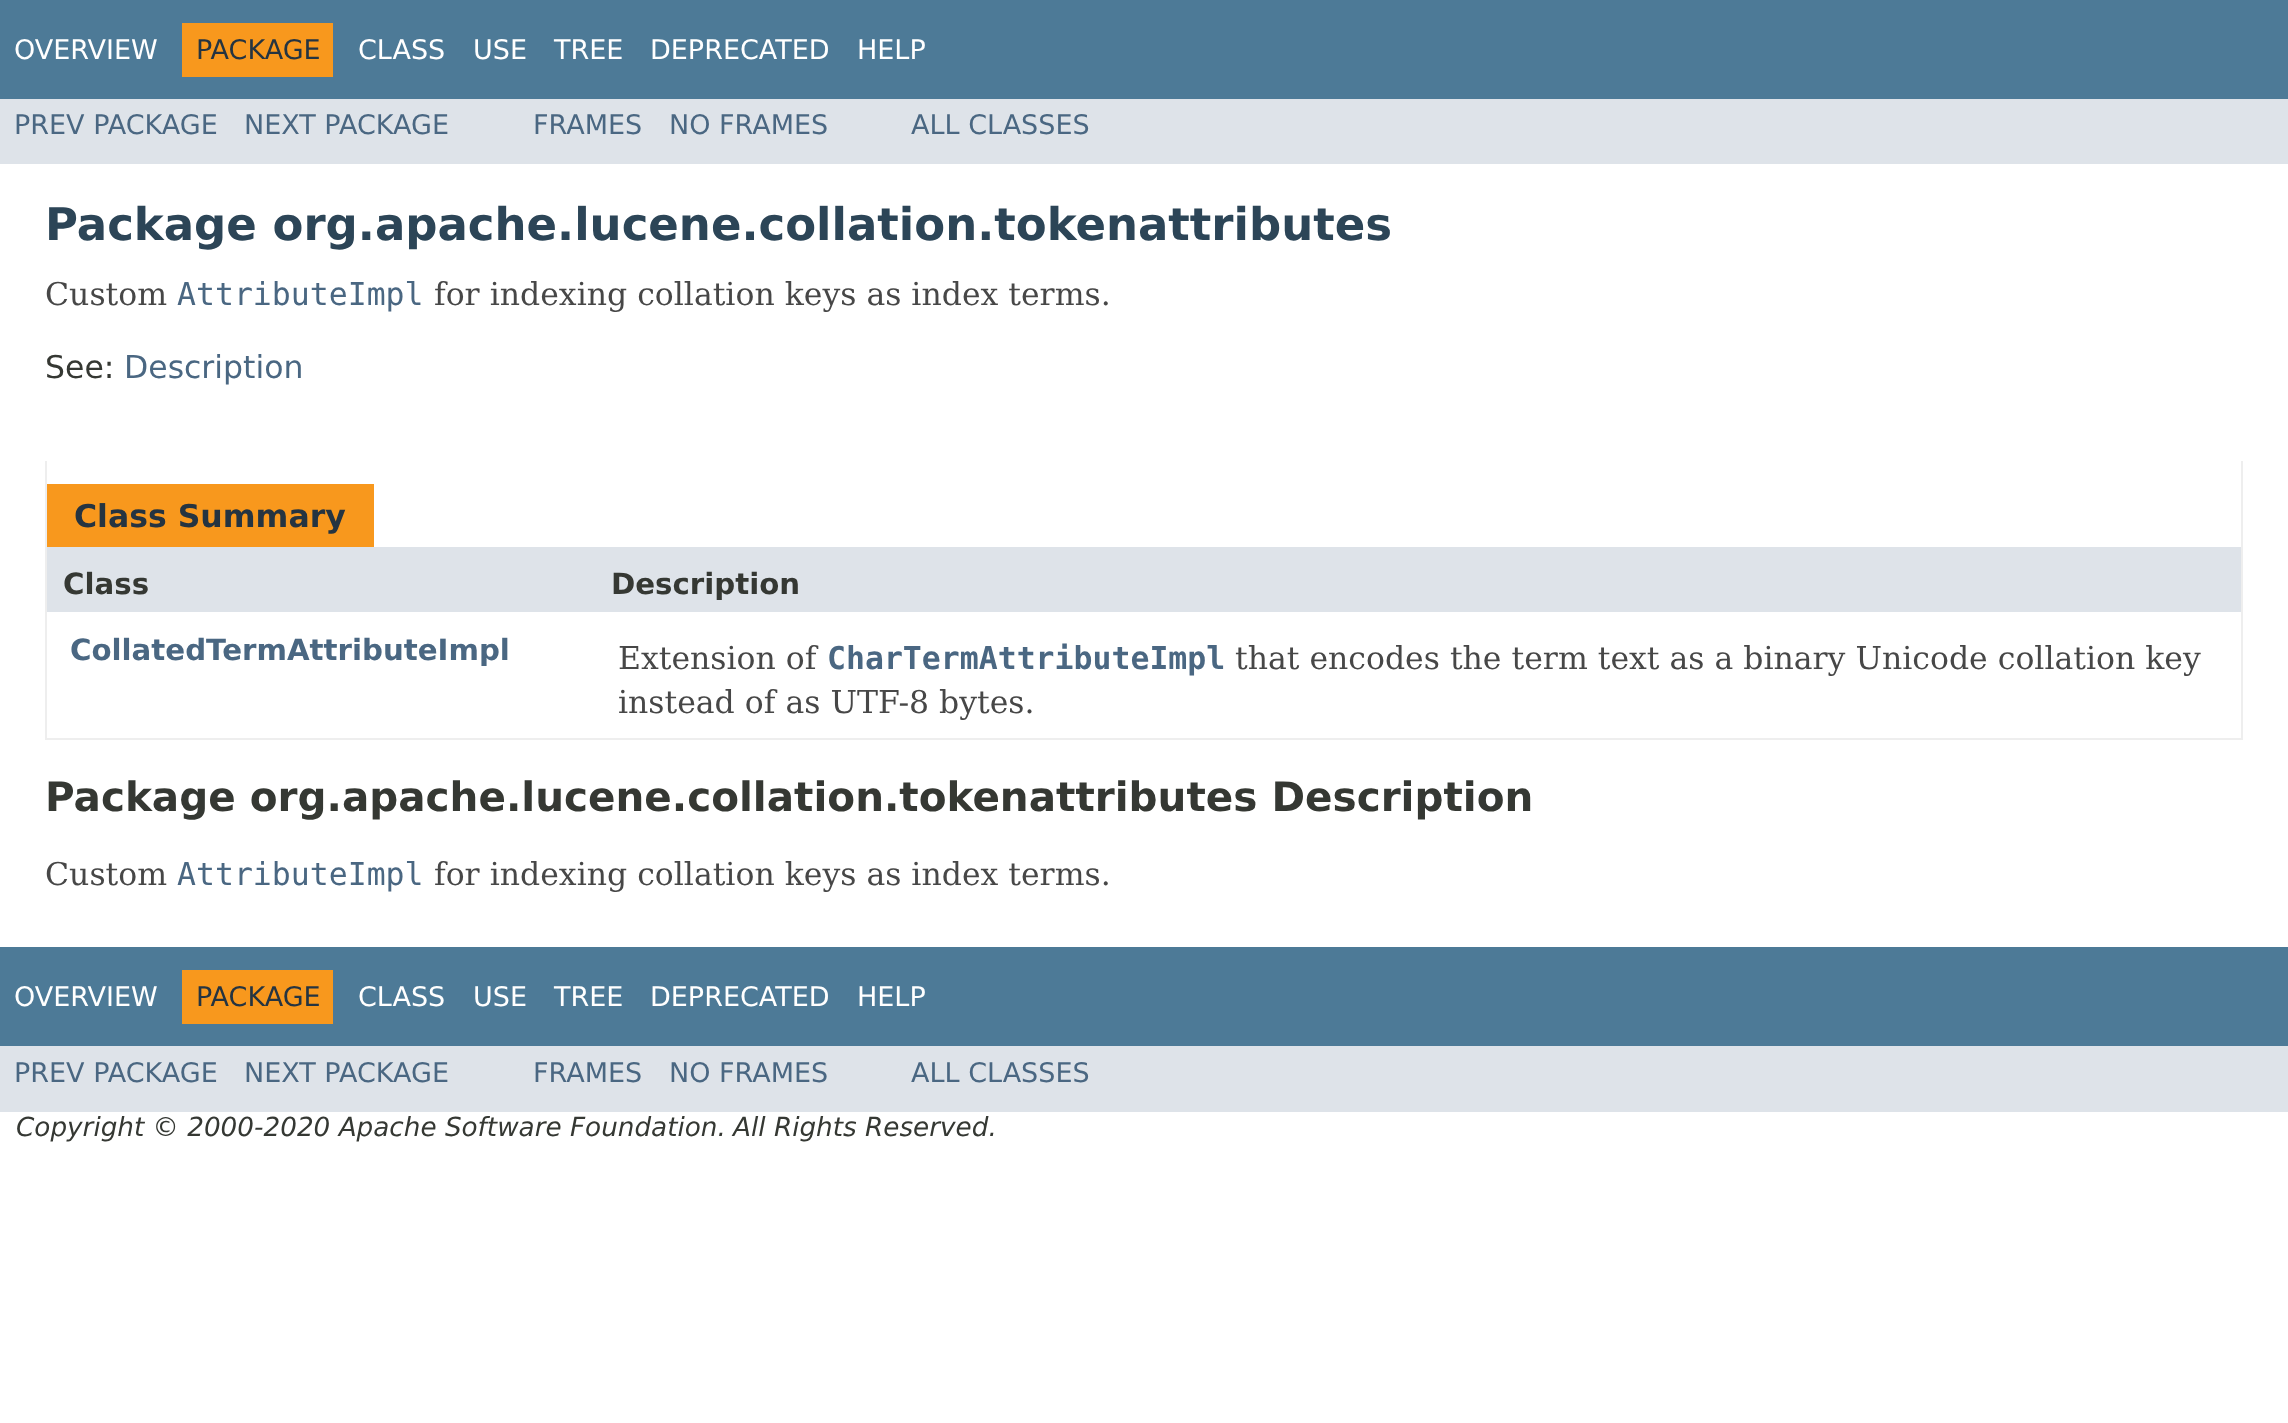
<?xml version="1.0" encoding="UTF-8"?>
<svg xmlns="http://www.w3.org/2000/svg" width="2288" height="1423">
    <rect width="100%" height="100%" fill="#FFFFFF"/>
    <rect x="0" y="0" width="2288" height="99" fill="#4D7A97"/>
    <text x="14" y="59" font-family="DejaVu Sans" font-size="27" fill="#FFFFFF">OVERVIEW</text>
    <rect x="182" y="23" width="151" height="54" fill="#F8981D"/>
    <text x="196" y="59" font-family="DejaVu Sans" font-size="27" fill="#253441">PACKAGE</text>
    <text x="358" y="59" font-family="DejaVu Sans" font-size="27" fill="#FFFFFF">CLASS</text>
    <text x="473" y="59" font-family="DejaVu Sans" font-size="27" fill="#FFFFFF">USE</text>
    <text x="554" y="59" font-family="DejaVu Sans" font-size="27" fill="#FFFFFF">TREE</text>
    <text x="650" y="59" font-family="DejaVu Sans" font-size="27" fill="#FFFFFF">DEPRECATED</text>
    <text x="857" y="59" font-family="DejaVu Sans" font-size="27" fill="#FFFFFF">HELP</text>
    <rect x="0" y="99" width="2288" height="65" fill="#DEE3E9"/>
    <text x="14" y="134" font-family="DejaVu Sans" font-size="27" fill="#4A6782">PREV PACKAGE</text>
    <text x="244" y="134" font-family="DejaVu Sans" font-size="27" fill="#4A6782">NEXT PACKAGE</text>
    <text x="533" y="134" font-family="DejaVu Sans" font-size="27" fill="#4A6782">FRAMES</text>
    <text x="669" y="134" font-family="DejaVu Sans" font-size="27" fill="#4A6782">NO FRAMES</text>
    <text x="911" y="134" font-family="DejaVu Sans" font-size="27" fill="#4A6782">ALL CLASSES</text>
    <text x="45" y="240" font-family="DejaVu Sans" font-size="45" font-weight="700" fill="#2C4557">Package org.apache.lucene.collation.tokenattributes</text>
    <text x="45" y="305" font-family="DejaVu Serif" font-size="31.5" fill="#474747">Custom</text>
    <text x="177" y="305" font-family="DejaVu Sans Mono" font-size="31.5" fill="#4A6782">AttributeImpl</text>
    <text x="434" y="305" font-family="DejaVu Serif" font-size="31.5" fill="#474747">for indexing collation keys as index terms.</text>
    <text x="45" y="378" font-family="DejaVu Sans" font-size="31.5" fill="#353833">See:</text>
    <text x="124" y="378" font-family="DejaVu Sans" font-size="31.5" fill="#4A6782">Description</text>
    <rect x="2241" y="461" width="2" height="279" fill="#EEEEEE"/>
    <rect x="45" y="738" width="2198" height="2" fill="#EEEEEE"/>
    <rect x="45" y="461" width="2" height="279" fill="#EEEEEE"/>
    <rect x="47" y="484" width="327" height="63" fill="#F8981D"/>
    <text x="74" y="527" font-family="DejaVu Sans" font-size="31.5" font-weight="700" fill="#253441">Class Summary</text>
    <rect x="47" y="547" width="2194" height="65" fill="#DEE3E9"/>
    <text x="63" y="594" font-family="DejaVu Sans" font-size="29.25" font-weight="700" fill="#353833">Class</text>
    <text x="611" y="594" font-family="DejaVu Sans" font-size="29.25" font-weight="700" fill="#353833">Description</text>
    <text x="70" y="660" font-family="DejaVu Sans" font-size="29.25" font-weight="700" fill="#4A6782">CollatedTermAttributeImpl</text>
    <text x="618" y="669" font-family="DejaVu Serif" font-size="31.5" fill="#474747">Extension of</text>
    <text x="827" y="669" font-family="DejaVu Sans Mono" font-size="31.5" font-weight="700" fill="#4A6782">CharTermAttributeImpl</text>
    <text x="1235" y="669" font-family="DejaVu Serif" font-size="31.5" fill="#474747">that encodes the term text as a binary Unicode collation key</text>
    <text x="618" y="713" font-family="DejaVu Serif" font-size="31.5" fill="#474747">instead of as UTF-8 bytes.</text>
    <text x="45" y="811" font-family="DejaVu Sans" font-size="40.5" font-weight="700" fill="#353833">Package org.apache.lucene.collation.tokenattributes Description</text>
    <text x="45" y="885" font-family="DejaVu Serif" font-size="31.5" fill="#474747">Custom</text>
    <text x="177" y="885" font-family="DejaVu Sans Mono" font-size="31.5" fill="#4A6782">AttributeImpl</text>
    <text x="434" y="885" font-family="DejaVu Serif" font-size="31.5" fill="#474747">for indexing collation keys as index terms.</text>
    <rect x="0" y="947" width="2288" height="99" fill="#4D7A97"/>
    <text x="14" y="1006" font-family="DejaVu Sans" font-size="27" fill="#FFFFFF">OVERVIEW</text>
    <rect x="182" y="970" width="151" height="54" fill="#F8981D"/>
    <text x="196" y="1006" font-family="DejaVu Sans" font-size="27" fill="#253441">PACKAGE</text>
    <text x="358" y="1006" font-family="DejaVu Sans" font-size="27" fill="#FFFFFF">CLASS</text>
    <text x="473" y="1006" font-family="DejaVu Sans" font-size="27" fill="#FFFFFF">USE</text>
    <text x="554" y="1006" font-family="DejaVu Sans" font-size="27" fill="#FFFFFF">TREE</text>
    <text x="650" y="1006" font-family="DejaVu Sans" font-size="27" fill="#FFFFFF">DEPRECATED</text>
    <text x="857" y="1006" font-family="DejaVu Sans" font-size="27" fill="#FFFFFF">HELP</text>
    <rect x="0" y="1046" width="2288" height="66" fill="#DEE3E9"/>
    <text x="14" y="1082" font-family="DejaVu Sans" font-size="27" fill="#4A6782">PREV PACKAGE</text>
    <text x="244" y="1082" font-family="DejaVu Sans" font-size="27" fill="#4A6782">NEXT PACKAGE</text>
    <text x="533" y="1082" font-family="DejaVu Sans" font-size="27" fill="#4A6782">FRAMES</text>
    <text x="669" y="1082" font-family="DejaVu Sans" font-size="27" fill="#4A6782">NO FRAMES</text>
    <text x="911" y="1082" font-family="DejaVu Sans" font-size="27" fill="#4A6782">ALL CLASSES</text>
    <text x="16" y="1136" font-family="DejaVu Sans" font-size="26.25" font-style="italic" fill="#353833">Copyright © 2000-2020 Apache Software Foundation.</text>
    <text x="733" y="1136" font-family="DejaVu Sans" font-size="26.25" font-style="italic" fill="#353833">All Rights Reserved.</text>
</svg>
